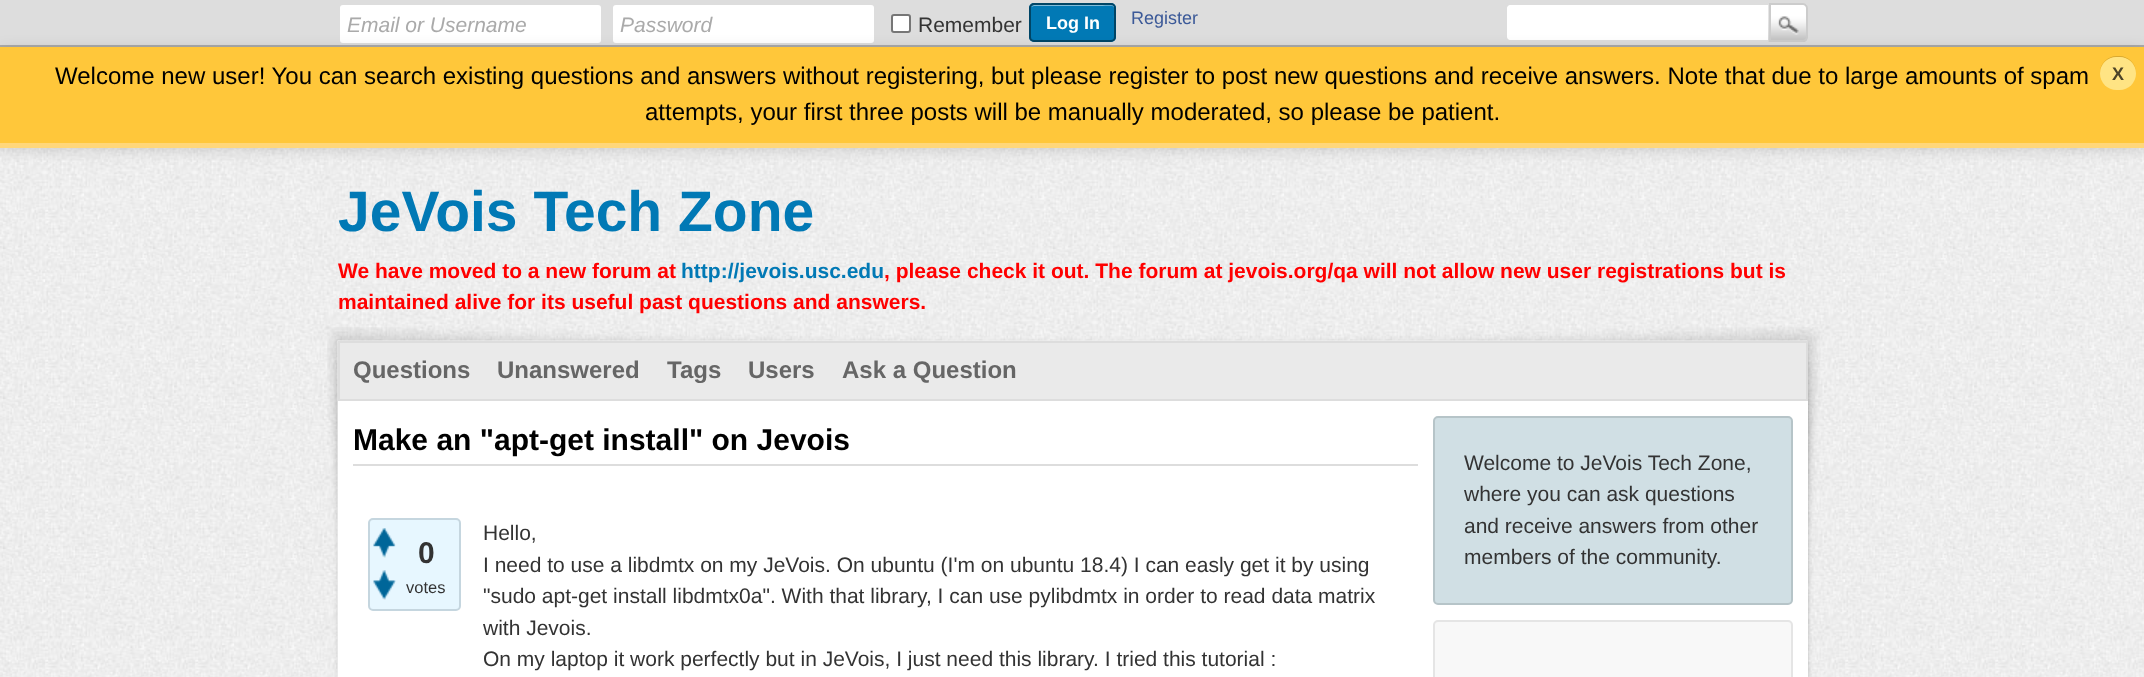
<?xml version="1.0" encoding="UTF-8"?>
<svg xmlns="http://www.w3.org/2000/svg" width="2144" height="677">
    <defs>
        <filter id="blur1" x="-50%" y="-200%" width="200%" height="500%"><feGaussianBlur stdDeviation="7.5"/></filter>
        <filter id="blur2" x="-50%" y="-200%" width="200%" height="500%"><feGaussianBlur stdDeviation="1.5"/></filter>
    </defs>
    <rect width="100%" height="100%" fill="#FFFFFF"/>
    <image x="0" y="148" width="2144" height="529" href="img_01.png"/>
    <rect x="0" y="0" width="2144" height="45" fill="#DDDDDD"/>
    <rect x="0" y="45" width="2144" height="2" fill="#AAAAAA"/>
    <rect x="339" y="4" width="263" height="40" rx="4" fill="#FFFFFF" stroke="#DDDDDD" stroke-width="2"/>
    <text x="347" y="32" font-family="Liberation Sans" font-size="21" font-style="italic" fill="#AAAAAA">Email or Username</text>
    <rect x="612" y="4" width="263" height="40" rx="4" fill="#FFFFFF" stroke="#DDDDDD" stroke-width="2"/>
    <text x="620" y="32" font-family="Liberation Sans" font-size="21" font-style="italic" fill="#AAAAAA">Password</text>
    <rect x="892" y="15" width="18" height="17" rx="2" fill="#FFFFFF" stroke="#767676" stroke-width="2"/>
    <text x="918" y="32" font-family="Liberation Sans" font-size="21" fill="#333333">Remember</text>
    <rect x="1029" y="3" width="87" height="39" rx="5" fill="#0179B5"/>
    <path d="M 1034 6 H 1099 C 1117 6 1114 3 1114 19 V 40 C 1115 40 1115 39 1115 38 V 8 C 1115 6 1114 5 1112 5 H 1034 C 1033 5 1032 6 1031 7 Z" fill="#80BCDA"/>
    <rect x="1030" y="4" width="85" height="37" rx="4" fill="none" stroke="#004566" stroke-width="2"/>
    <text x="1046" y="29" font-family="Liberation Sans" font-size="18" font-weight="700" fill="#FFFFFF">Log In</text>
    <text x="1131" y="24" font-family="Liberation Sans" font-size="18" fill="#3B5998">Register</text>
    <path d="M 1510 4 H 1769 V 41 H 1510 C 1508 41 1506 39 1506 37 V 8 C 1506 6 1508 4 1510 4 Z" fill="#FFFFFF" stroke="#DDDDDD" stroke-width="2"/>
    <image x="1768" y="4" width="40" height="38" href="img_02.png"/>
    <path d="M 1770 4 H 1803 C 1805 4 1807 6 1807 8 V 37 C 1807 39 1805 41 1803 41 H 1770 Z" fill="none" stroke="#CCCCCC" stroke-width="2"/>
    <rect x="0" y="50" width="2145" height="100" fill="#000000" fill-opacity="0.15" filter="url(#blur1)"/>
    <rect x="0" y="47" width="2144" height="96" fill="#FFC73A"/>
    <rect x="0" y="143" width="2144" height="5" fill="#FFD77A"/>
    <text x="55" y="84" font-family="Liberation Sans" font-size="24" fill="#000000">Welcome new user! You can search existing questions and answers without registering, but please register to post new questions and receive answers. Note that due to large amounts of spam</text>
    <path d="M 2116.5 56 C 2107.5 56 2099.5 64 2100 73 C 2100.5 51.5 2135.5 51.5 2136 73 C 2136.5 64 2128.5 56 2119.5 56 Z" fill="#D9A931"/>
    <rect x="2100" y="57" width="36" height="33" rx="16.5" fill="#FFE484"/>
    <text x="2112" y="80" font-family="Liberation Sans" font-size="18" font-weight="700" fill="#4D4428">X</text>
    <text x="645" y="120" font-family="Liberation Sans" font-size="24" fill="#000000">attempts, your first three posts will be manually moderated, so please be patient.</text>
    <text x="338" y="231" font-family="Liberation Sans" font-size="57" font-weight="700" fill="#0179B5">JeVois Tech Zone</text>
    <text x="338" y="278" font-family="Liberation Sans" font-size="21" font-weight="700" fill="#FF0000">We have moved to a new forum at</text>
    <text x="681" y="278" font-family="Liberation Sans" font-size="21" font-weight="700" fill="#0179B5">http://jevois.usc.edu</text>
    <text x="884" y="278" font-family="Liberation Sans" font-size="21" font-weight="700" fill="#FF0000">, please check it out. The forum at jevois.org/qa will not allow new user registrations but is</text>
    <text x="338" y="309" font-family="Liberation Sans" font-size="21" font-weight="700" fill="#FF0000">maintained alive for its useful past questions and answers.</text>
    <image x="327" y="327" width="1493" height="350" href="img_03.png"/>
    <rect x="338" y="341" width="1470" height="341" fill="#000000" fill-opacity="0.1" filter="url(#blur2)"/>
    <rect x="338" y="401" width="1470" height="276" fill="#FFFFFF"/>
    <rect x="339" y="342" width="1468" height="58" fill="#EAEAEA" stroke="#DDDDDD" stroke-width="2"/>
    <text x="353" y="378" font-family="Liberation Sans" font-size="24" font-weight="700" fill="#666666">Questions</text>
    <text x="497" y="378" font-family="Liberation Sans" font-size="24" font-weight="700" fill="#666666">Unanswered</text>
    <text x="667" y="378" font-family="Liberation Sans" font-size="24" font-weight="700" fill="#666666">Tags</text>
    <text x="748" y="378" font-family="Liberation Sans" font-size="24" font-weight="700" fill="#666666">Users</text>
    <text x="842" y="378" font-family="Liberation Sans" font-size="24" font-weight="700" fill="#666666">Ask a Question</text>
    <rect x="353" y="464" width="1065" height="2" fill="#DDDDDD"/>
    <text x="353" y="450" font-family="Liberation Sans" font-size="30" font-weight="700" fill="#000000">Make an "apt-get install" on Jevois</text>
    <rect x="369" y="519" width="91" height="91" rx="4" fill="#E7F7FF" stroke="#C5D6DF" stroke-width="2"/>
    <image x="373" y="528" width="23" height="30" href="img_04.png"/>
    <image x="373" y="570" width="23" height="30" href="img_05.png"/>
    <text x="418" y="563" font-family="Liberation Sans" font-size="30" font-weight="700" fill="#333333">0</text>
    <text x="406" y="593" font-family="Liberation Sans" font-size="16.5" fill="#333333">votes</text>
    <text font-family="Liberation Sans" font-size="21" fill="#333333">
        <tspan x="483" y="540">Hello,</tspan>
        <tspan x="483" y="572">I need to use a libdmtx on my JeVois. On ubuntu (I'm on ubuntu 18.4) I can easly get it by using</tspan>
        <tspan x="483" y="603">"sudo apt-get install libdmtx0a". With that library, I can use pylibdmtx in order to read data matrix</tspan>
        <tspan x="483" y="635">with Jevois.</tspan>
        <tspan x="483" y="666">On my laptop it work perfectly but in JeVois, I just need this library. I tried this tutorial :</tspan>
    </text>
    <rect x="1434" y="417" width="358" height="187" rx="4" fill="#D0DFE4" stroke="#B6C4C8" stroke-width="2"/>
    <text font-family="Liberation Sans" font-size="21" fill="#333333">
        <tspan x="1464" y="470">Welcome to JeVois Tech Zone,</tspan>
        <tspan x="1464" y="501">where you can ask questions</tspan>
        <tspan x="1464" y="533">and receive answers from other</tspan>
        <tspan x="1464" y="564">members of the community.</tspan>
    </text>
    <rect x="1434" y="621" width="358" height="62" rx="4" fill="#F8F8F8" stroke="#E5E5E5" stroke-width="2"/>
</svg>
